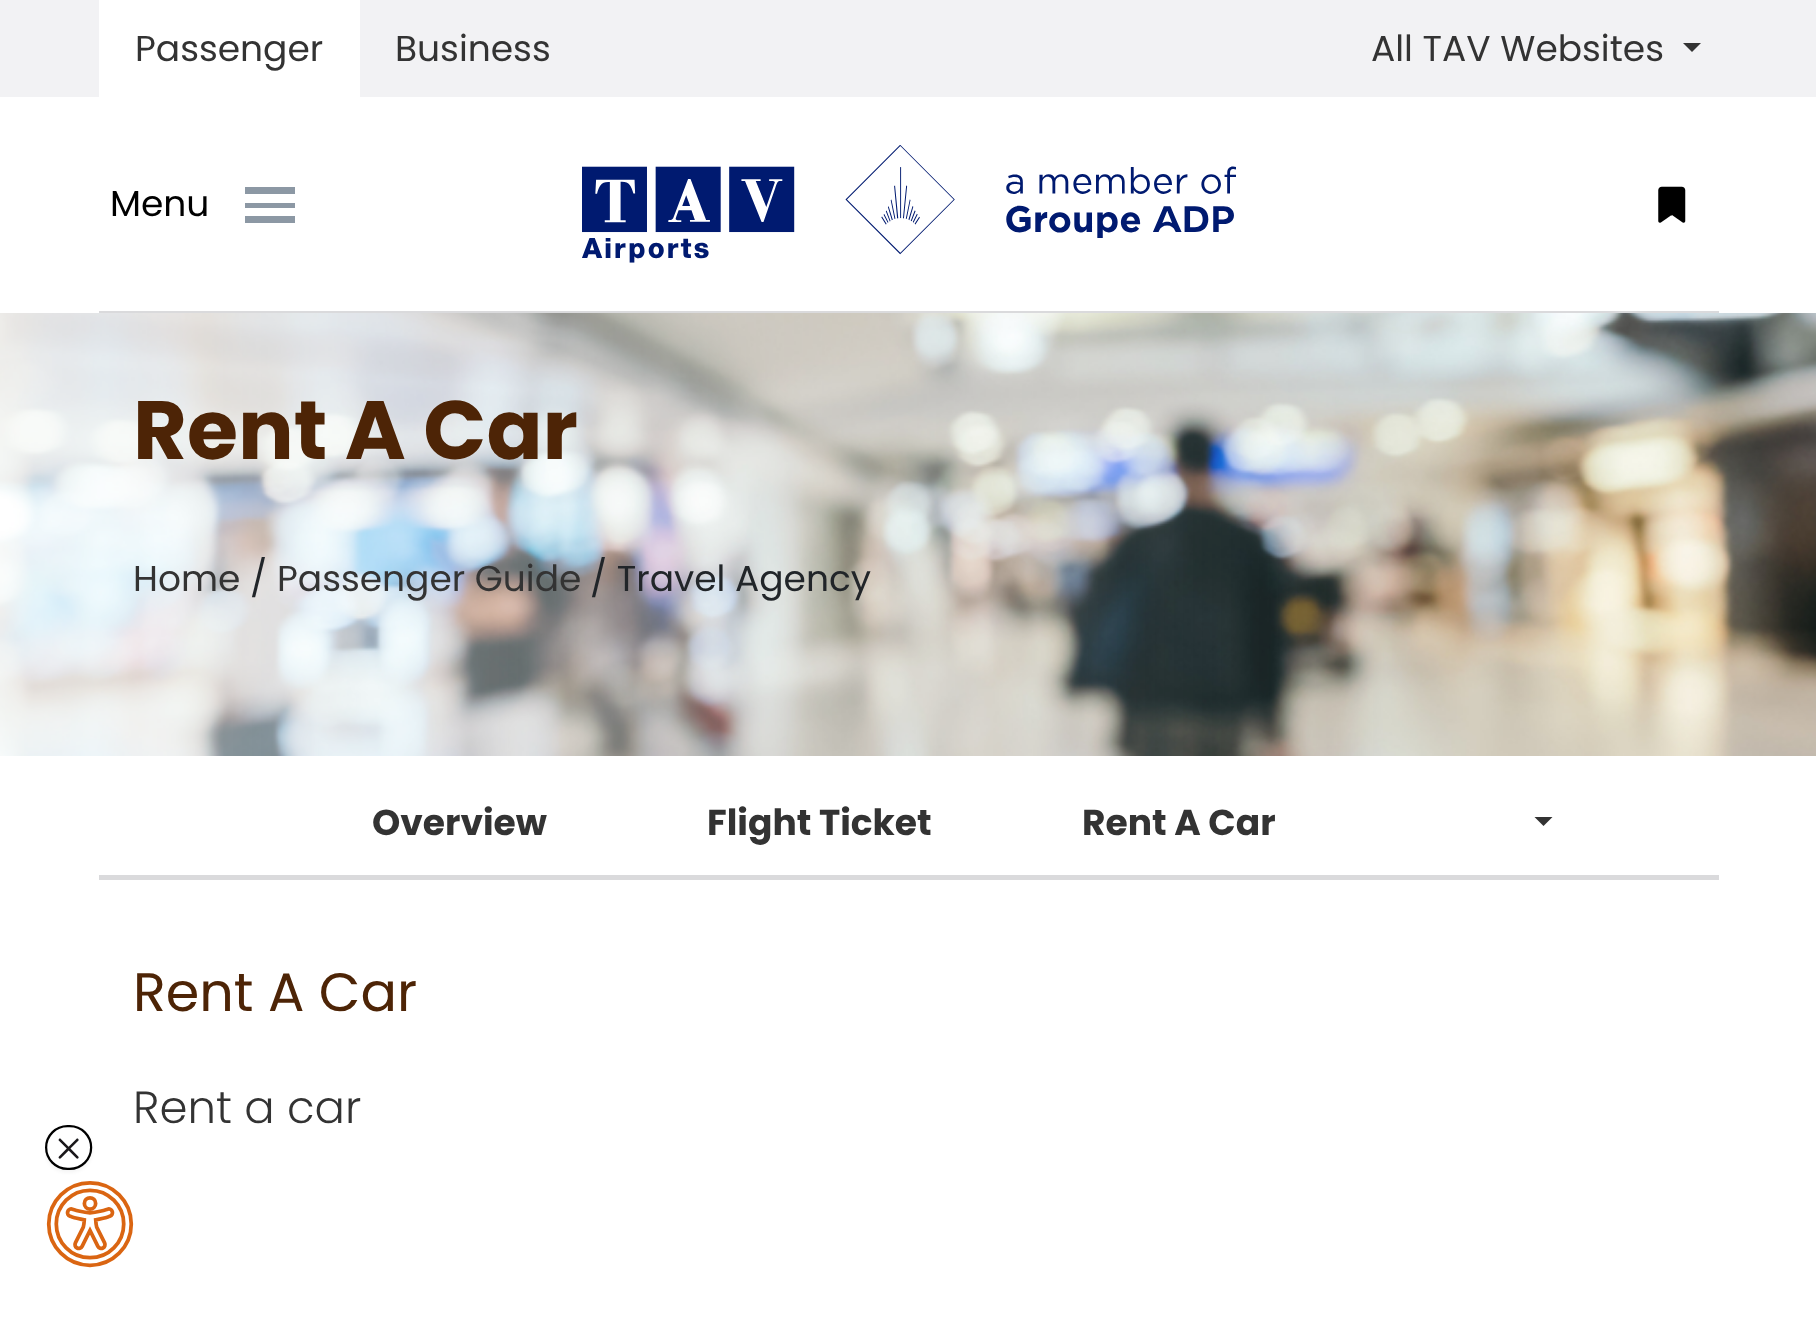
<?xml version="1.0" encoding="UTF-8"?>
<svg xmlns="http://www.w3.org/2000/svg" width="1816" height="1331">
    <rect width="100%" height="100%" fill="#FFFFFF"/>
    <rect x="0" y="0" width="1816" height="97" fill="#F2F2F4"/>
    <rect x="99" y="0" width="261" height="97" fill="#FFFFFF"/>
    <text x="135" y="61" font-family="Poppins" font-size="36" fill="#333333">Passenger</text>
    <text x="395" y="61" font-family="Poppins" font-size="36" fill="#333333">Business</text>
    <text x="1371" y="61" font-family="Poppins" font-size="36" fill="#333333">All TAV Websites</text>
    <path d="M 1683 43 H 1701 L 1692 52 Z" fill="#333333"/>
    <rect x="99" y="311" width="1620" height="2" fill="#DADADC"/>
    <text x="110" y="216" font-family="Poppins" font-size="36" fill="#000000">Menu</text>
    <rect x="245" y="187" width="50" height="7" fill="#8C98A4"/>
    <rect x="245" y="203" width="50" height="5" fill="#8C98A4"/>
    <rect x="245" y="216" width="50" height="7" fill="#8C98A4"/>
    <image x="582" y="145" width="654" height="118" href="img_01.png"/>
    <path d="M 1672 198 V 216 L 1663 207 Z" fill="#333333"/>
    <image x="1658" y="186" width="28" height="37" href="img_02.png"/>
    <image x="0" y="313" width="1816" height="443" href="img_03.png"/>
    <text x="133" y="459" font-family="Poppins" font-size="82.75" font-weight="700" fill="#4D2406">Rent A Car</text>
    <text x="133" y="591" font-family="Poppins" font-size="36" fill="#333333">Home</text>
    <text x="250" y="591" font-family="Poppins" font-size="36" fill="#212529">/</text>
    <text x="277" y="591" font-family="Poppins" font-size="36" fill="#333333">Passenger Guide</text>
    <text x="590" y="591" font-family="Poppins" font-size="36" fill="#212529">/ Travel Agency</text>
    <rect x="99" y="875" width="1620" height="5" fill="#DADADC"/>
    <text x="372" y="835" font-family="Poppins" font-size="36" font-weight="700" fill="#333333">Overview</text>
    <text x="707" y="835" font-family="Poppins" font-size="36" font-weight="700" fill="#333333">Flight Ticket</text>
    <text x="1082" y="835" font-family="Poppins" font-size="36" font-weight="700" fill="#333333">Rent A Car</text>
    <path d="M 1534.5 817 H 1552.5 L 1543.5 826 Z" fill="#333333"/>
    <text x="133" y="1011" font-family="Poppins" font-size="54" fill="#4D2406">Rent A Car</text>
    <text x="133" y="1123" font-family="Poppins" font-size="45" font-weight="300" fill="#333333">Rent a car</text>
    <image x="45" y="1125" width="89" height="143" href="img_04.png"/>
</svg>
